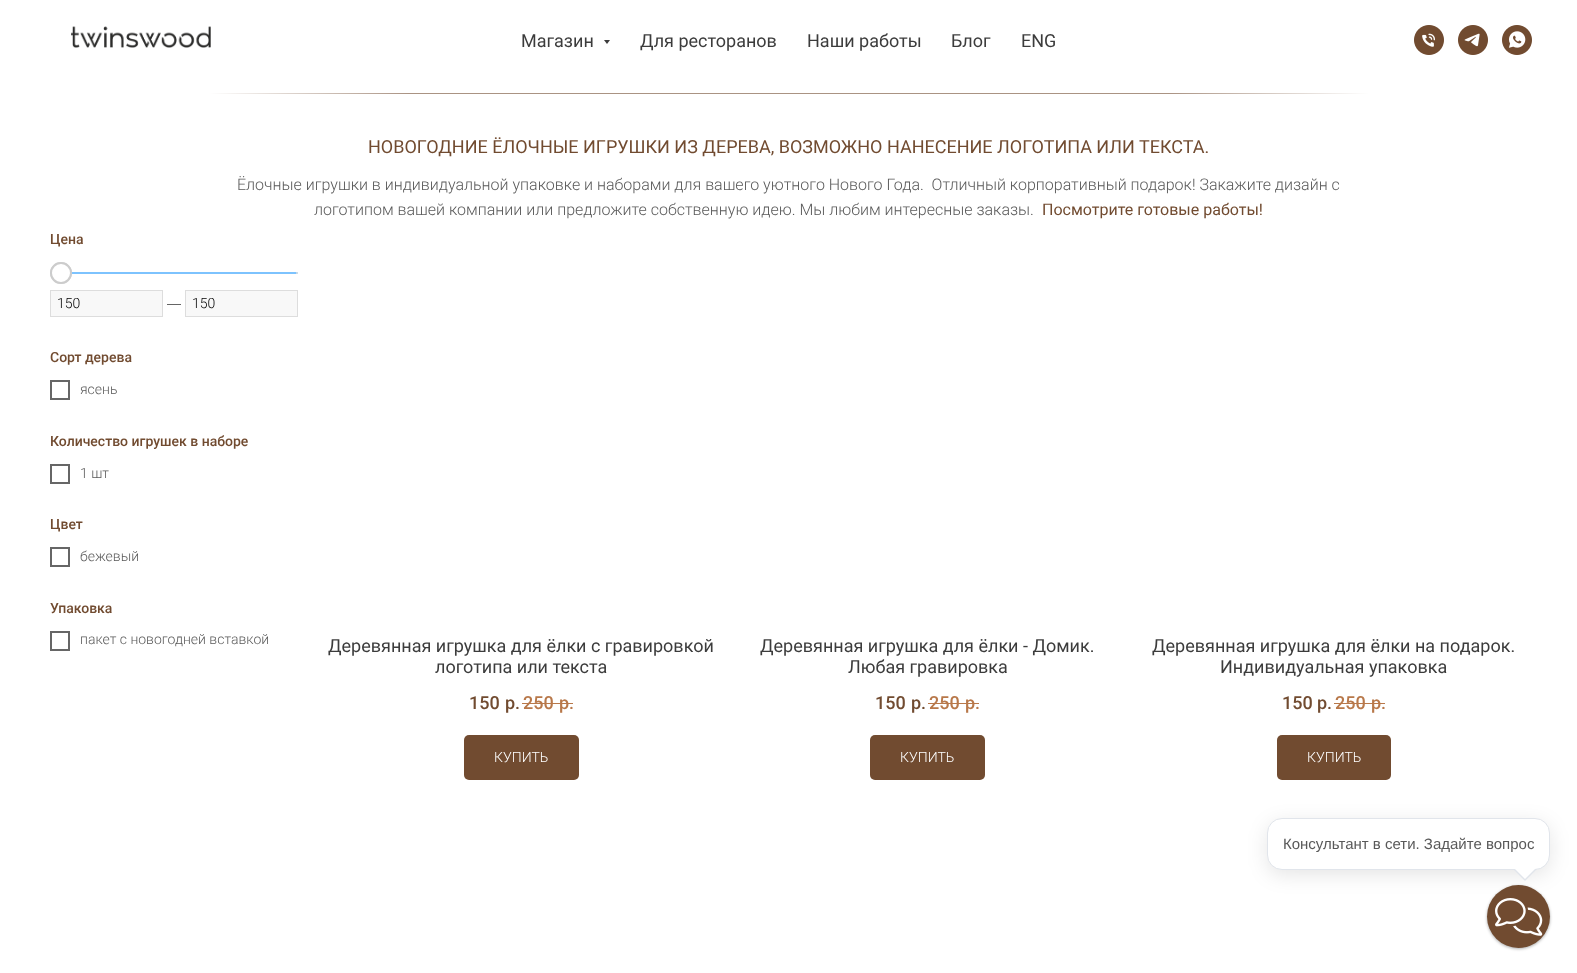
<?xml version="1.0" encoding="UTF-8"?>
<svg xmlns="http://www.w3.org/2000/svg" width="1577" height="973">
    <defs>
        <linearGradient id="g1" gradientUnits="userSpaceOnUse" x1="409" y1="94" x2="209" y2="94"><stop offset="0" stop-color="#AA9383"/><stop offset="1" stop-color="#FFFFFF"/></linearGradient>
        <linearGradient id="g2" gradientUnits="userSpaceOnUse" x1="1169" y1="94" x2="1369" y2="94"><stop offset="0" stop-color="#AA9383"/><stop offset="1" stop-color="#FFFFFF"/></linearGradient>
        <filter id="blur1" x="-50%" y="-200%" width="200%" height="500%"><feGaussianBlur stdDeviation="1.5"/></filter>
        <filter id="blur2" x="-50%" y="-200%" width="200%" height="500%"><feGaussianBlur stdDeviation="10"/></filter>
    </defs>
    <rect width="100%" height="100%" fill="#FFFFFF"/>
    <image x="71" y="26" width="140" height="22" href="img_01.png"/>
    <text x="521" y="47" font-family="Roboto" font-size="18" fill="#3C3C3C">Магазин</text>
    <path d="M 604 40 H 610 L 607 44 Z" fill="#3C3C3C"/>
    <text x="640" y="47" font-family="Roboto" font-size="18" fill="#3C3C3C">Для ресторанов</text>
    <text x="807" y="47" font-family="Roboto" font-size="18" fill="#3C3C3C">Наши работы</text>
    <text x="951" y="47" font-family="Roboto" font-size="18" fill="#3C3C3C">Блог</text>
    <text x="1021" y="47" font-family="Roboto" font-size="18" fill="#3C3C3C">ENG</text>
    <image x="1414" y="25" width="30" height="30" href="img_02.png"/>
    <image x="1458" y="25" width="30" height="30" href="img_03.png"/>
    <image x="1502" y="25" width="30" height="30" href="img_04.png"/>
    <rect x="209" y="93" width="200" height="1" fill="url(#g1)"/>
    <rect x="409" y="93" width="760" height="1" fill="#AA9383"/>
    <rect x="1169" y="93" width="200" height="1" fill="url(#g2)"/>
    <text x="368" y="153" font-family="Roboto" font-size="18" fill="#714B30">НОВОГОДНИЕ ЁЛОЧНЫЕ ИГРУШКИ ИЗ ДЕРЕВА, ВОЗМОЖНО НАНЕСЕНИЕ ЛОГОТИПА ИЛИ ТЕКСТА.</text>
    <text x="237" y="190" font-family="Roboto" font-size="16" font-weight="300" fill="#595959" xml:space="preserve">Ёлочные игрушки в индивидуальной упаковке и наборами для вашего уютного Нового Года.  Отличный корпоративный подарок! Закажите дизайн с</text>
    <text x="314" y="215" font-family="Roboto" font-size="16" font-weight="300" fill="#595959">логотипом вашей компании или предложите собственную идею. Мы любим интересные заказы.</text>
    <text x="1042" y="215" font-family="Roboto" font-size="16" fill="#714B30">Посмотрите готовые работы!</text>
    <text x="50" y="244" font-family="Roboto" font-size="14" font-weight="500" fill="#714B30">Цена</text>
    <rect x="50" y="272" width="248" height="2" rx="1" fill="#7DC3FE"/>
    <circle cx="61" cy="273" r="10" fill="none" stroke="#000000" stroke-opacity="0.2" stroke-width="2"/>
    <circle cx="61" cy="273" r="11" fill="#FFFFFF"/>
    <circle cx="61" cy="273" r="10" fill="none" stroke="#000000" stroke-opacity="0.2" stroke-width="2"/>
    <circle cx="297" cy="273" r="1" fill="#DDDDDD"/>
    <rect x="50.5" y="290.5" width="112" height="26" fill="#F8F8F8" stroke="#DDDDDD"/>
    <text x="57" y="308" font-family="Roboto" font-size="14" font-weight="300" fill="#000000">150</text>
    <text x="167" y="308" font-family="Liberation Sans" font-size="14" fill="#595959">—</text>
    <rect x="185.5" y="290.5" width="112" height="26" fill="#F8F8F8" stroke="#DDDDDD"/>
    <text x="192" y="308" font-family="Roboto" font-size="14" font-weight="300" fill="#000000">150</text>
    <text x="50" y="362" font-family="Roboto" font-size="14" font-weight="500" fill="#714B30">Сорт дерева</text>
    <rect x="51" y="381" width="18" height="18" fill="none" stroke="#666666" stroke-width="2"/>
    <text x="80" y="394" font-family="Roboto" font-size="14" font-weight="300" fill="#595959">ясень</text>
    <text x="50" y="446" font-family="Roboto" font-size="14" font-weight="500" fill="#714B30">Количество игрушек в наборе</text>
    <rect x="51" y="465" width="18" height="18" fill="none" stroke="#666666" stroke-width="2"/>
    <text x="80" y="478" font-family="Roboto" font-size="14" font-weight="300" fill="#595959">1 шт</text>
    <text x="50" y="529" font-family="Roboto" font-size="14" font-weight="500" fill="#714B30">Цвет</text>
    <rect x="51" y="548" width="18" height="18" fill="none" stroke="#666666" stroke-width="2"/>
    <text x="80" y="561" font-family="Roboto" font-size="14" font-weight="300" fill="#595959">бежевый</text>
    <text x="50" y="613" font-family="Roboto" font-size="14" font-weight="500" fill="#714B30">Упаковка</text>
    <rect x="51" y="632" width="18" height="18" fill="none" stroke="#666666" stroke-width="2"/>
    <text x="80" y="644" font-family="Roboto" font-size="14" font-weight="300" fill="#595959">пакет с новогодней вставкой</text>
    <text x="328" y="652" font-family="Roboto" font-size="18" fill="#3C3C3C">Деревянная игрушка для ёлки с гравировкой</text>
    <text x="435" y="673" font-family="Roboto" font-size="18" fill="#3C3C3C">логотипа или текста</text>
    <text x="469" y="709" font-family="Roboto" font-size="18" font-weight="500" fill="#714B30">150</text>
    <text x="505" y="709" font-family="Roboto" font-size="18" font-weight="500" fill="#714B30">р.</text>
    <text x="523" y="709" font-family="Roboto" font-size="18" font-weight="500" fill="#B8784A">250</text>
    <text x="559" y="709" font-family="Roboto" font-size="18" font-weight="500" fill="#B8784A">р.</text>
    <rect x="522" y="703" width="51" height="1" fill="#B8784A"/>
    <rect x="464" y="735" width="115" height="45" rx="5" fill="#714B30"/>
    <text x="494" y="762" font-family="Roboto" font-size="14" font-weight="300" fill="#FFFFFF">КУПИТЬ</text>
    <text x="760" y="652" font-family="Roboto" font-size="18" fill="#3C3C3C">Деревянная игрушка для ёлки - Домик.</text>
    <text x="848" y="673" font-family="Roboto" font-size="18" fill="#3C3C3C">Любая гравировка</text>
    <text x="875" y="709" font-family="Roboto" font-size="18" font-weight="500" fill="#714B30">150</text>
    <text x="911" y="709" font-family="Roboto" font-size="18" font-weight="500" fill="#714B30">р.</text>
    <text x="929" y="709" font-family="Roboto" font-size="18" font-weight="500" fill="#B8784A">250</text>
    <text x="965" y="709" font-family="Roboto" font-size="18" font-weight="500" fill="#B8784A">р.</text>
    <rect x="928" y="703" width="51" height="1" fill="#B8784A"/>
    <rect x="870" y="735" width="115" height="45" rx="5" fill="#714B30"/>
    <text x="900" y="762" font-family="Roboto" font-size="14" font-weight="300" fill="#FFFFFF">КУПИТЬ</text>
    <text x="1152" y="652" font-family="Roboto" font-size="18" fill="#3C3C3C">Деревянная игрушка для ёлки на подарок.</text>
    <text x="1220" y="673" font-family="Roboto" font-size="18" fill="#3C3C3C">Индивидуальная упаковка</text>
    <text x="1282" y="709" font-family="Roboto" font-size="18" font-weight="500" fill="#714B30">150</text>
    <text x="1317" y="709" font-family="Roboto" font-size="18" font-weight="500" fill="#714B30">р.</text>
    <text x="1335" y="709" font-family="Roboto" font-size="18" font-weight="500" fill="#B8784A">250</text>
    <text x="1371" y="709" font-family="Roboto" font-size="18" font-weight="500" fill="#B8784A">р.</text>
    <rect x="1334" y="703" width="51" height="1" fill="#B8784A"/>
    <rect x="1277" y="735" width="114" height="45" rx="5" fill="#714B30"/>
    <text x="1307" y="762" font-family="Roboto" font-size="14" font-weight="300" fill="#FFFFFF">КУПИТЬ</text>
    <rect x="1487" y="886" width="63" height="63" rx="31.5" fill="#000000" fill-opacity="0.33" filter="url(#blur1)"/>
    <circle cx="1518.5" cy="916.5" r="31.5" fill="#714B30"/>
    <image x="1495" y="898" width="48" height="38" href="img_05.png"/>
    <rect x="1267" y="823" width="283" height="52" rx="15" fill="#000000" fill-opacity="0.1" filter="url(#blur2)"/>
    <rect x="1267.5" y="818.5" width="282" height="51" rx="14.5" fill="#FFFFFF" stroke="#E1E5EB"/>
    <text x="1283" y="849" font-family="Liberation Sans" font-size="15" fill="#595959">Консультант в сети. Задайте вопрос</text>
    <path d="M 1513 869 H 1537 L 1525 881 Z" fill="#E1E5EB"/>
    <path d="M 1515 869 H 1535 L 1525 879 Z" fill="#FFFFFF"/>
</svg>
